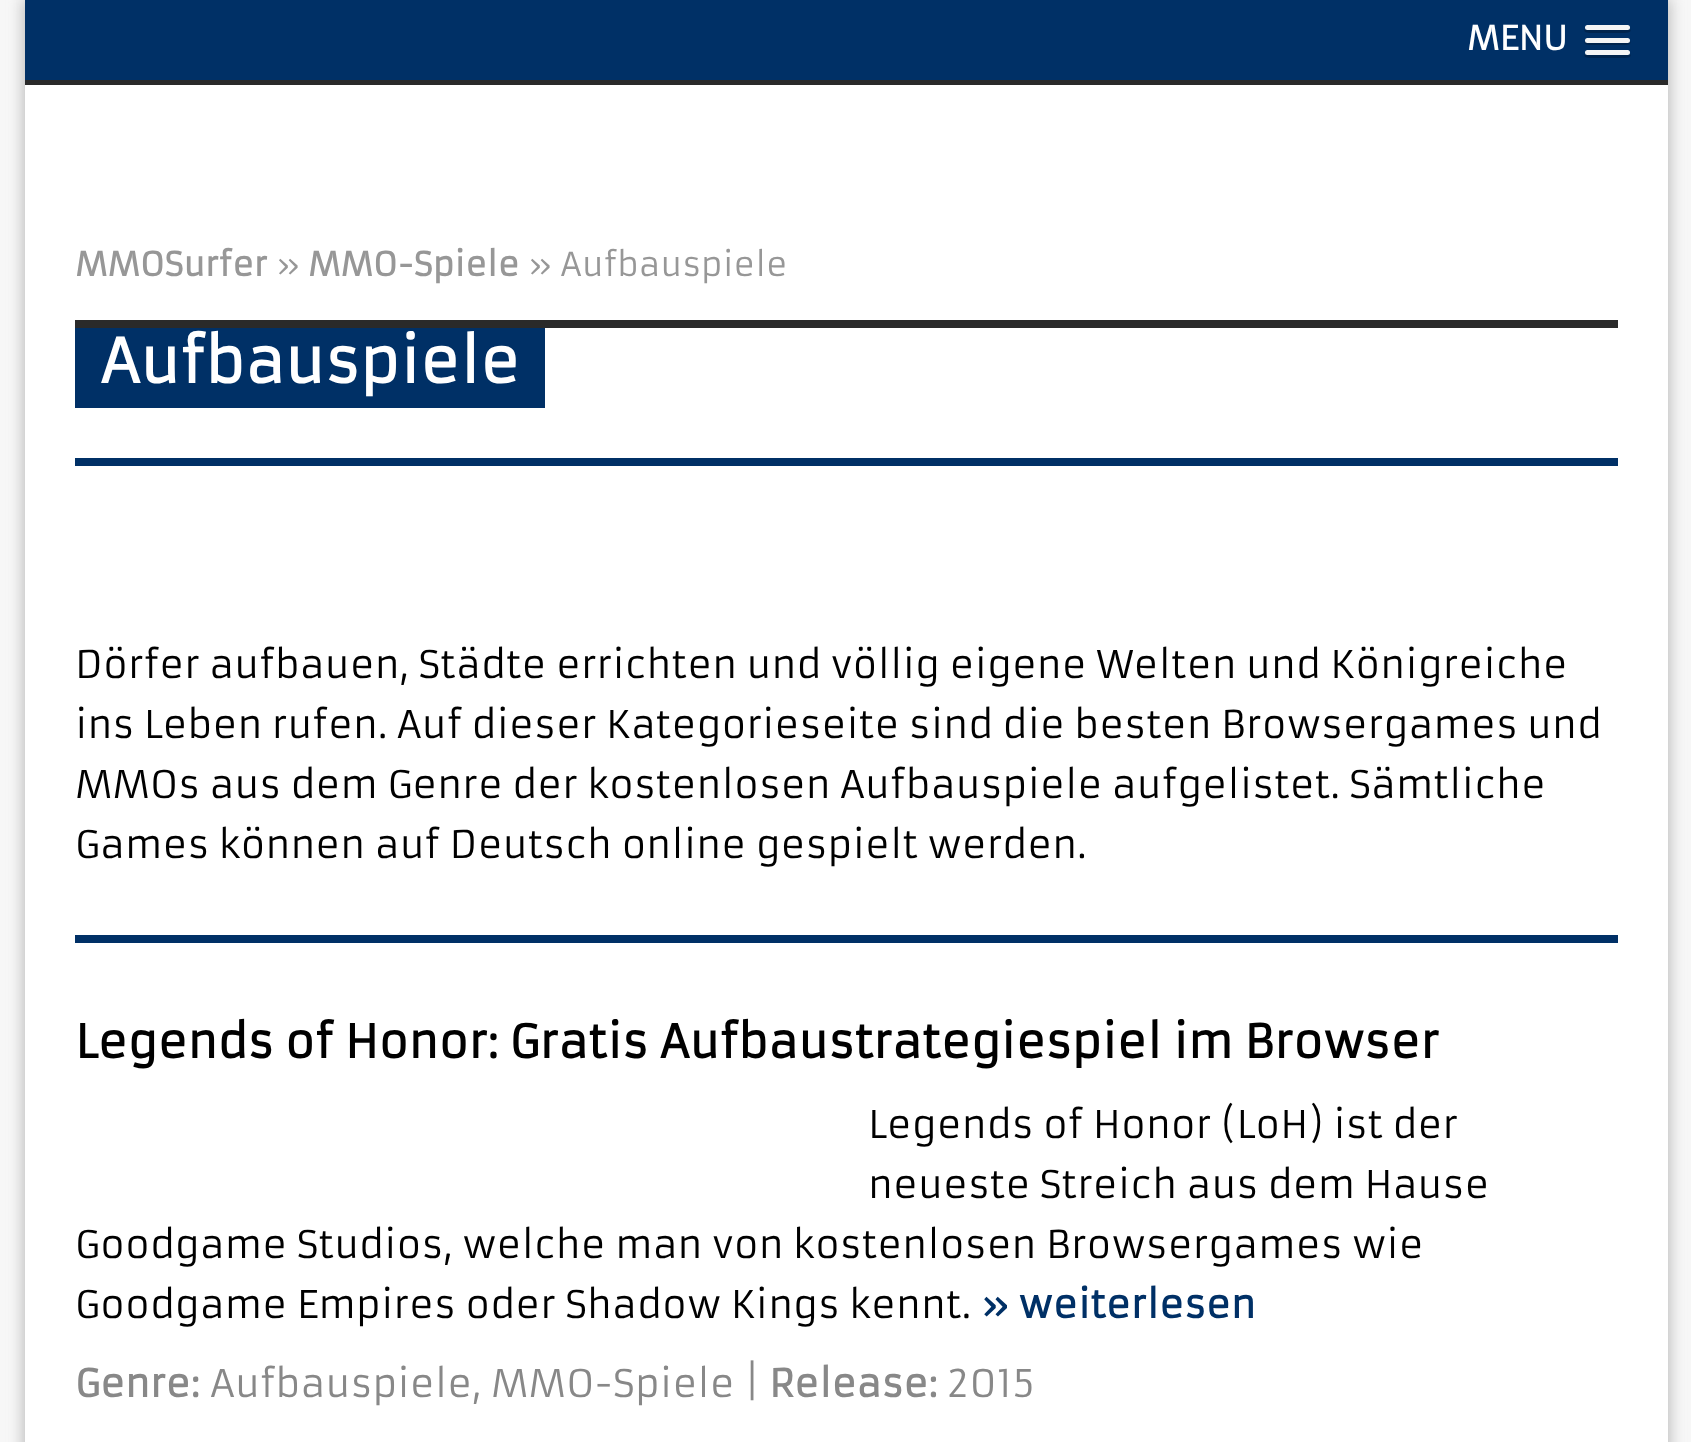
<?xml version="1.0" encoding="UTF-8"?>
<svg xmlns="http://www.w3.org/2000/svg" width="1691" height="1442">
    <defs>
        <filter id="blur1" x="-50%" y="-200%" width="200%" height="500%"><feGaussianBlur stdDeviation="7.5"/></filter>
    </defs>
    <rect width="100%" height="100%" fill="#F7F7F7"/>
    <rect x="23" y="-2" width="1647" height="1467" fill="#BBBBBB" filter="url(#blur1)"/>
    <rect x="25" y="0" width="1643" height="80" fill="#003066"/>
    <rect x="25" y="80" width="1643" height="5" fill="#2A2A2A"/>
    <text x="1467" y="50" font-family="Armata" font-size="32.5" font-weight="700" fill="#FFFFFF">MENU</text>
    <path d="M 1585 29 C 1582 33 1590 33 1594 33 H 1621 C 1625 33 1633 33 1630 29 L 1628 30 H 1587 Z" fill="#00244D"/>
    <rect x="1585" y="25" width="45" height="5" rx="2.5" fill="#F5F5F5"/>
    <path d="M 1585 41 C 1582 46 1594 45 1594 45 H 1621 C 1621 45 1633 46 1630 41 C 1629 42 1628 42 1628 42 H 1588 C 1587 42 1586 42 1585 41 Z" fill="#00244D"/>
    <rect x="1585" y="38" width="45" height="5" rx="2.5" fill="#F5F5F5"/>
    <path d="M 1585 54 C 1582 58 1590 58 1594 58 H 1621 C 1625 58 1633 58 1630 54 L 1628 55 H 1587 Z" fill="#00244D"/>
    <rect x="1585" y="50" width="45" height="5" rx="2.5" fill="#F5F5F5"/>
    <rect x="25" y="85" width="1643" height="1357" fill="#FFFFFF"/>
    <text x="75" y="276" font-family="Armata" font-size="32.5" font-weight="700" fill="#979797">MMOSurfer</text>
    <text x="276" y="276" font-family="Armata" font-size="32.5" fill="#979797">»</text>
    <text x="308" y="276" font-family="Armata" font-size="32.5" font-weight="700" fill="#979797">MMO-Spiele</text>
    <text x="528" y="276" font-family="Armata" font-size="32.5" fill="#979797">» Aufbauspiele</text>
    <rect x="75" y="320" width="1543" height="8" fill="#2A2A2A"/>
    <rect x="75" y="328" width="470" height="80" fill="#003066"/>
    <text x="100" y="383" font-family="Armata" font-size="60" font-weight="700" fill="#FFFFFF">Aufbauspiele</text>
    <rect x="75" y="458" width="1543" height="8" fill="#003066"/>
    <rect x="75" y="935" width="1543" height="8" fill="#003066"/>
    <text font-family="Armata" font-size="37.5" fill="#000000">
        <tspan x="75" y="678">Dörfer aufbauen, Städte errichten und völlig eigene Welten und Königreiche</tspan>
        <tspan x="75" y="738">ins Leben rufen. Auf dieser Kategorieseite sind die besten Browsergames und</tspan>
        <tspan x="75" y="798">MMOs aus dem Genre der kostenlosen Aufbauspiele aufgelistet. Sämtliche</tspan>
        <tspan x="75" y="858">Games können auf Deutsch online gespielt werden.</tspan>
    </text>
    <text x="75" y="1058" font-family="Armata" font-size="45" font-weight="700" fill="#000000">Legends of Honor: Gratis Aufbaustrategiespiel im Browser</text>
    <text font-family="Armata" font-size="37.5" fill="#000000">
        <tspan x="868" y="1138">Legends of Honor (LoH) ist der</tspan>
        <tspan x="868" y="1198">neueste Streich aus dem Hause</tspan>
    </text>
    <text font-family="Armata" font-size="37.5" fill="#000000">
        <tspan x="75" y="1258">Goodgame Studios, welche man von kostenlosen Browsergames wie</tspan>
        <tspan x="75" y="1318">Goodgame Empires oder Shadow Kings kennt.</tspan>
    </text>
    <text x="981" y="1318" font-family="Armata" font-size="37.5" font-weight="700" fill="#003066">» weiterlesen</text>
    <text x="75" y="1397" font-family="Armata" font-size="37.5" font-weight="700" fill="#888888">Genre:</text>
    <text x="210" y="1397" font-family="Armata" font-size="37.5" fill="#888888">Aufbauspiele, MMO-Spiele |</text>
    <text x="769" y="1397" font-family="Armata" font-size="37.5" font-weight="700" fill="#888888">Release:</text>
    <text x="947" y="1397" font-family="Armata" font-size="37.5" fill="#888888">2015</text>
</svg>
